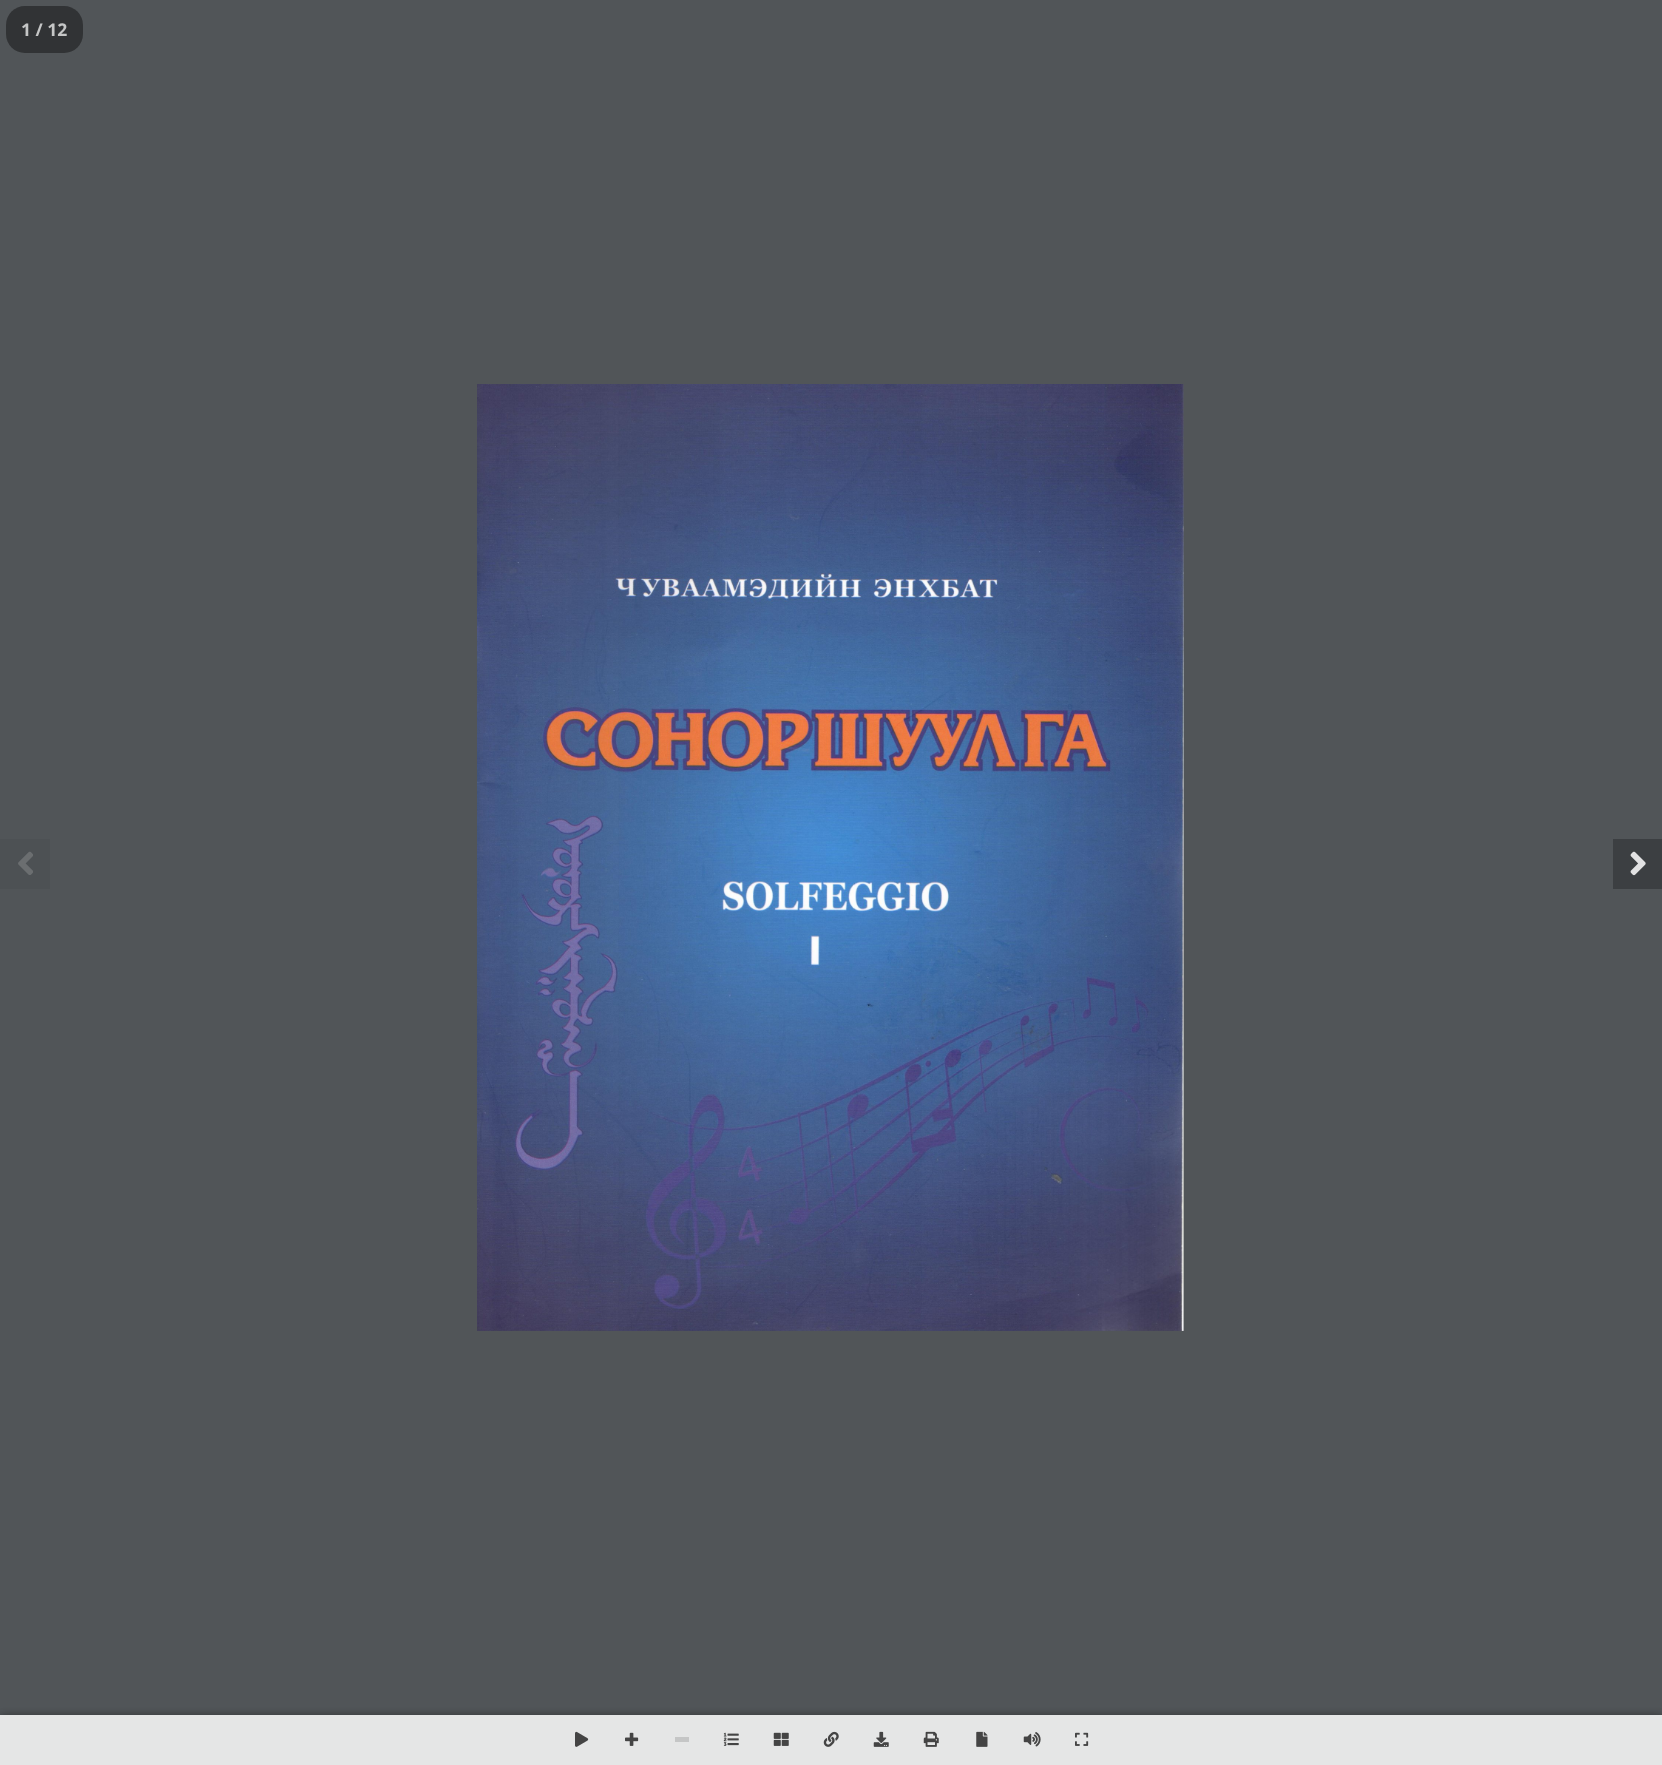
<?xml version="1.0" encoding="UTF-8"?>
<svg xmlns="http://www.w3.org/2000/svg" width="1662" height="1765">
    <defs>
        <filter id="blur1" x="-50%" y="-200%" width="200%" height="500%"><feGaussianBlur stdDeviation="4"/></filter>
    </defs>
    <rect width="100%" height="100%" fill="#515558"/>
    <rect x="6" y="6" width="77" height="47" rx="19" fill="#313335"/>
    <text x="21" y="36" font-family="Open Sans" font-size="17.5" font-weight="700" fill="#C5C6C6">1 / 12</text>
    <rect x="0" y="839" width="50" height="50" fill="#4D5154"/>
    <image x="18" y="851" width="15" height="24" href="img_01.png"/>
    <image x="477" y="384" width="707" height="947" href="img_02.png"/>
    <rect x="1613" y="839" width="49" height="50" fill="#3C3F42"/>
    <image x="1630" y="851" width="16" height="25" href="img_03.png"/>
    <rect x="0" y="1715" width="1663" height="50" fill="#000000" fill-opacity="0.23" filter="url(#blur1)"/>
    <rect x="0" y="1715" width="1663" height="50" fill="#000000" fill-opacity="0.16" filter="url(#blur1)"/>
    <rect x="0" y="1715" width="1662" height="50" fill="#E5E6E6"/>
    <image x="575" y="1731" width="14" height="16" href="img_04.png"/>
    <image x="625" y="1732" width="14" height="14" href="img_05.png"/>
    <rect x="675" y="1737" width="14" height="5" fill="#C5C6C6"/>
    <image x="723" y="1732" width="16" height="14" href="img_06.png"/>
    <image x="773" y="1732" width="16" height="14" href="img_07.png"/>
    <image x="823" y="1731" width="16" height="16" href="img_08.png"/>
    <image x="873" y="1731" width="16" height="16" href="img_09.png"/>
    <image x="923" y="1731" width="16" height="16" href="img_10.png"/>
    <image x="976" y="1731" width="12" height="16" href="img_11.png"/>
    <image x="1023" y="1732" width="18" height="15" href="img_12.png"/>
    <image x="1075" y="1732" width="14" height="14" href="img_13.png"/>
</svg>
